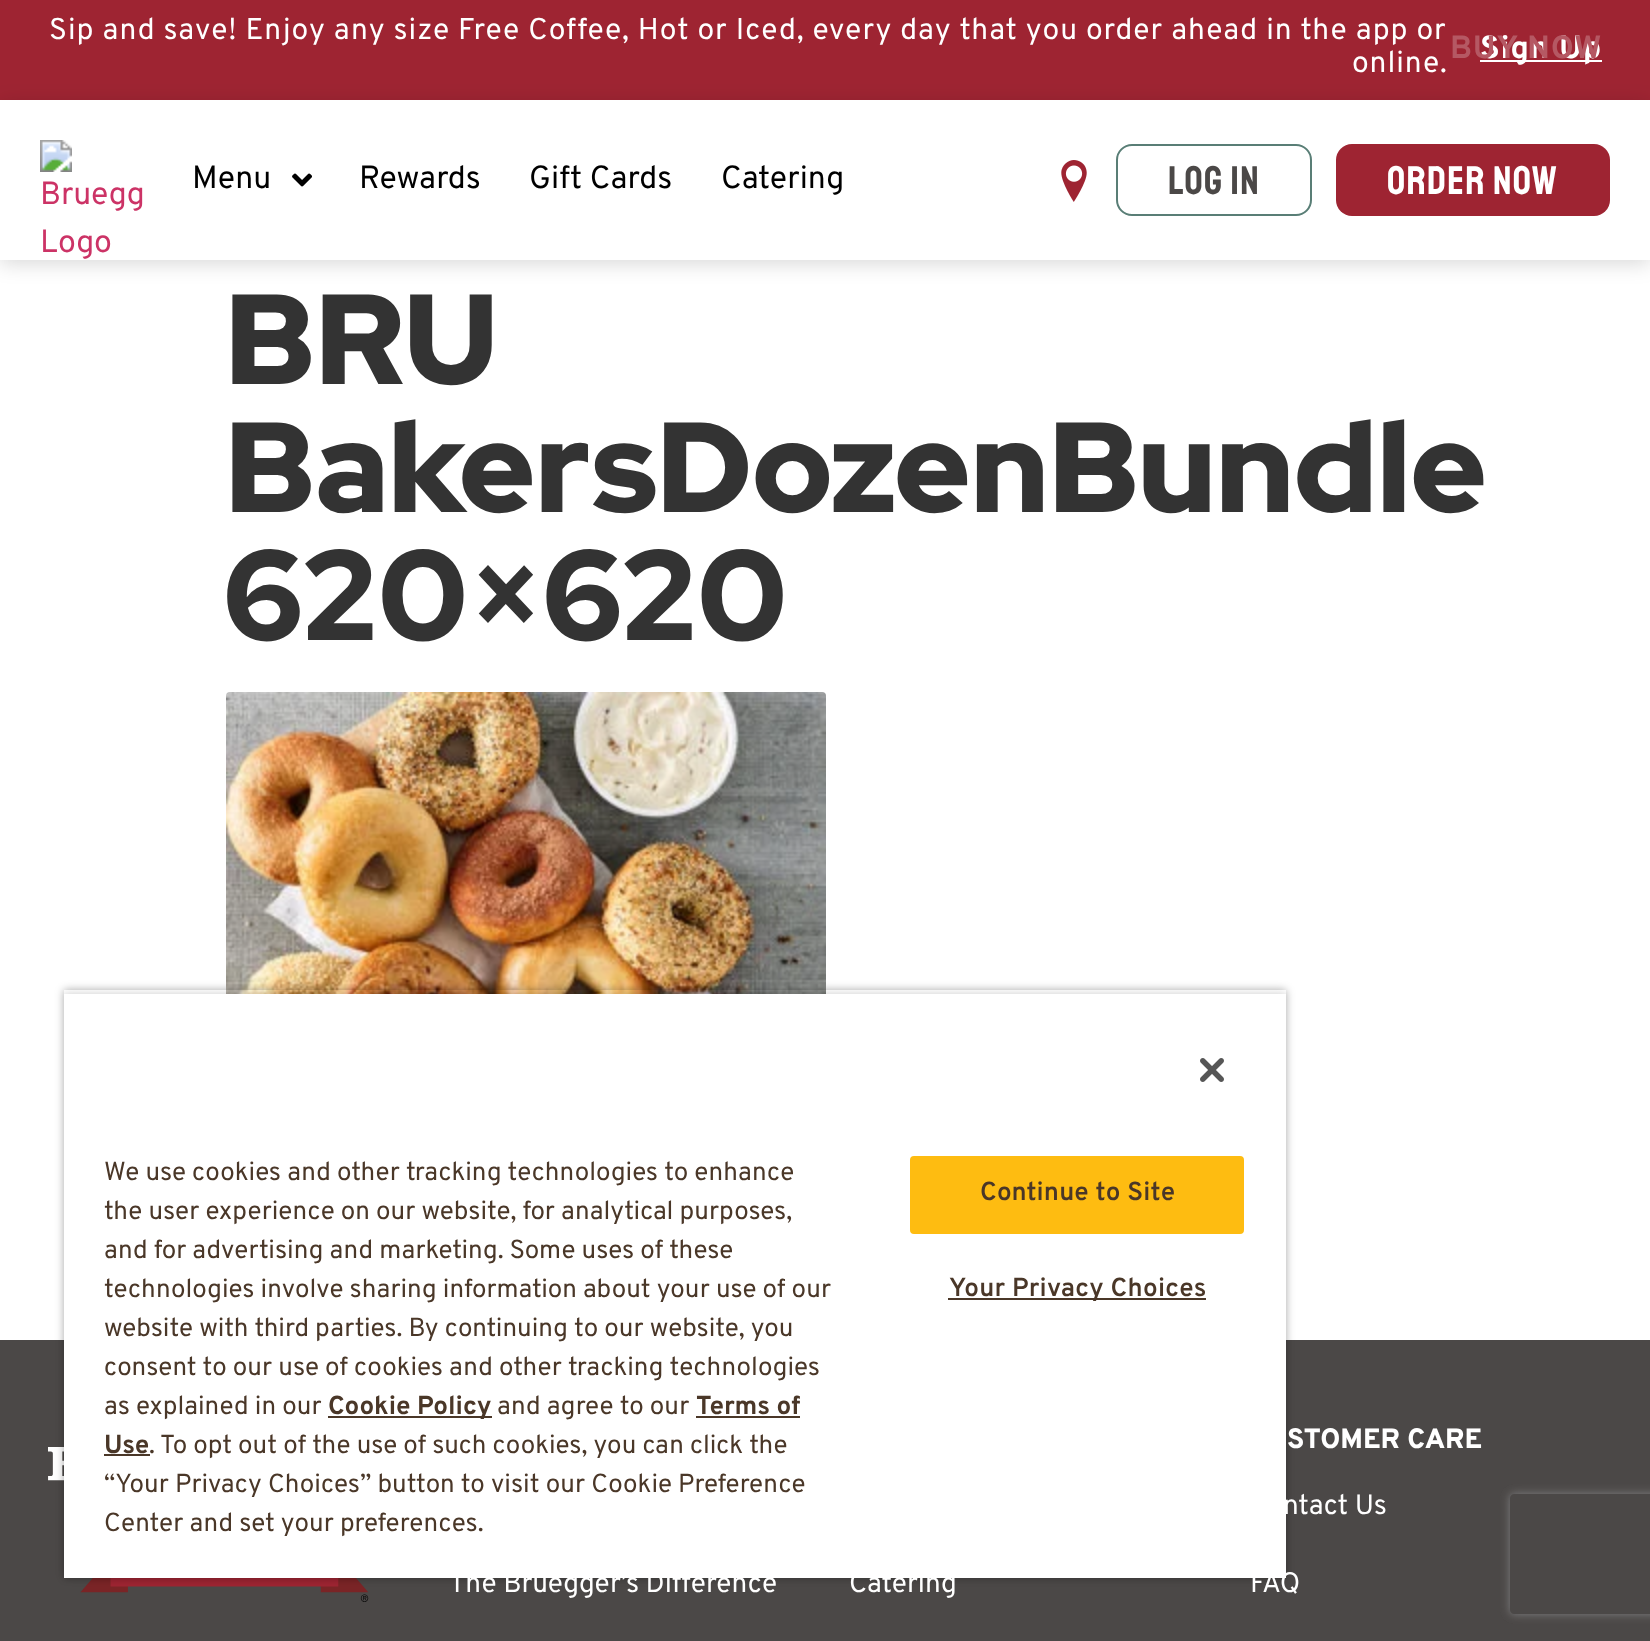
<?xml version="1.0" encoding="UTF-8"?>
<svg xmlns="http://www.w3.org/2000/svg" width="1650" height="1641">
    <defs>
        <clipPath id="clip1"><path d="M 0 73 H 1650 V 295 H 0 Z M 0 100 H 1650 V 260 H 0 Z" clip-rule="evenodd"/></clipPath>
        <filter id="blur1" x="-50%" y="-200%" width="200%" height="500%"><feGaussianBlur stdDeviation="10"/></filter>
        <clipPath id="clip2"><path d="M 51 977 H 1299 V 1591 H 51 Z M 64 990 H 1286 V 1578 H 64 Z" clip-rule="evenodd"/></clipPath>
        <filter id="blur2" x="-50%" y="-200%" width="200%" height="500%"><feGaussianBlur stdDeviation="4"/></filter>
        <clipPath id="clip3"><rect x="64" y="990" width="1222" height="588"/></clipPath>
        <clipPath id="clip4"><path d="M 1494 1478 H 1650 V 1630 H 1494 Z M 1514 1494 H 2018 C 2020 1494 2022 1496 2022 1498 V 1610 C 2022 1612 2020 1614 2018 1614 H 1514 C 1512 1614 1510 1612 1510 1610 V 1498 C 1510 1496 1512 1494 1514 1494 Z" clip-rule="evenodd"/></clipPath>
        <filter id="blur3" x="-50%" y="-200%" width="200%" height="500%"><feGaussianBlur stdDeviation="5"/></filter>
    </defs>
    <rect width="100%" height="100%" fill="#FFFFFF"/>
    <rect x="0" y="0" width="1650" height="100" fill="#9E2432"/>
    <text x="49" y="39" font-family="Overpass" font-size="30" letter-spacing="0.95" fill="#FFFFFF">Sip and save! Enjoy any size Free Coffee, Hot or Iced, every day that you order ahead in the app or</text>
    <text x="1352" y="72" font-family="Overpass" font-size="30" letter-spacing="0.95" fill="#FFFFFF">online.</text>
    <rect x="1480" y="60" width="122" height="2" fill="#FFFFFF"/>
    <text x="1480" y="58" font-family="Overpass" font-size="32" font-weight="700" letter-spacing="0.95" fill="#FFFFFF">Sign Up</text>
    <text x="1450" y="58" font-family="Overpass" font-size="32" font-weight="700" letter-spacing="0.95" fill="#B55863">BUY NOW</text>
    <g clip-path="url(#clip1)">
        <rect x="0" y="104" width="1650" height="160" fill="#000000" fill-opacity="0.15" filter="url(#blur1)"/>
    </g>
    <image x="40" y="140" width="103" height="119" href="img_01.png"/>
    <text x="192" y="188" font-family="Overpass" font-size="32" fill="#000000">Menu</text>
    <image x="292" y="173" width="20" height="14" href="img_02.png"/>
    <text x="359" y="188" font-family="Overpass" font-size="32" fill="#000000">Rewards</text>
    <text x="529" y="188" font-family="Overpass" font-size="32" fill="#000000">Gift Cards</text>
    <text x="721" y="188" font-family="Overpass" font-size="32" fill="#000000">Catering</text>
    <image x="1061" y="160" width="26" height="42" href="img_03.png"/>
    <rect x="1117" y="145" width="194" height="70" rx="15" fill="none" stroke="#597E76" stroke-width="2"/>
    <text x="1168" y="194" font-family="Staatliches" font-size="40" letter-spacing="1.25" fill="#4B4847">LOG IN</text>
    <rect x="1336" y="144" width="274" height="72" rx="16" fill="#9E2432"/>
    <text x="1387" y="194" font-family="Staatliches" font-size="40" letter-spacing="1.25" fill="#FFFFFF">ORDER NOW</text>
    <text font-family="Red Hat Display" font-size="128" font-weight="900" fill="#333333">
        <tspan x="225" y="384">BRU</tspan>
        <tspan x="225" y="512">BakersDozenBundle</tspan>
        <tspan x="225" y="640">620×620</tspan>
    </text>
    <image x="226" y="692" width="600" height="302" href="img_04.png"/>
    <rect x="0" y="1340" width="1650" height="301" fill="#4B4847"/>
    <image x="48" y="1447" width="321" height="155" href="img_06.png"/>
    <g clip-path="url(#clip2)">
        <rect x="64" y="990" width="1222" height="588" fill="#000000" fill-opacity="0.35" filter="url(#blur2)"/>
    </g>
    <g clip-path="url(#clip3)">
        <rect x="64" y="994" width="1222" height="584" fill="#000000" fill-opacity="0.2" filter="url(#blur2)"/>
    </g>
    <rect x="64" y="994" width="1222" height="584" fill="#FFFFFF"/>
    <image x="1200" y="1058" width="24" height="24" href="img_05.png"/>
    <text font-family="Overpass" font-size="26" fill="#4A3728">
        <tspan x="104" y="1180">We use cookies and other tracking technologies to enhance</tspan>
        <tspan x="104" y="1219">the user experience on our website, for analytical purposes,</tspan>
        <tspan x="104" y="1258">and for advertising and marketing. Some uses of these</tspan>
        <tspan x="104" y="1297">technologies involve sharing information about your use of our</tspan>
        <tspan x="104" y="1336">website with third parties. By continuing to our website, you</tspan>
        <tspan x="104" y="1375">consent to our use of cookies and other tracking technologies</tspan>
        <tspan x="104" y="1414">as explained in our</tspan>
    </text>
    <rect x="328" y="1416" width="164" height="2" fill="#4A3728"/>
    <text x="328" y="1414" font-family="Overpass" font-size="26" font-weight="700" fill="#4A3728">Cookie Policy</text>
    <text x="497" y="1414" font-family="Overpass" font-size="26" fill="#4A3728">and agree to our</text>
    <text x="696" y="1414" font-family="Overpass" font-size="26" font-weight="700" fill="#4A3728">Terms of</text>
    <rect x="696" y="1416" width="104" height="2" fill="#4A3728"/>
    <text x="104" y="1453" font-family="Overpass" font-size="26" font-weight="700" fill="#4A3728">Use</text>
    <rect x="104" y="1454" width="46" height="2" fill="#4A3728"/>
    <text x="149" y="1453" font-family="Overpass" font-size="26" fill="#4A3728">. To opt out of the use of such cookies, you can click the</text>
    <text font-family="Overpass" font-size="26" fill="#4A3728">
        <tspan x="104" y="1492">“Your Privacy Choices” button to visit our Cookie Preference</tspan>
        <tspan x="104" y="1531">Center and set your preferences.</tspan>
    </text>
    <rect x="911" y="1157" width="332" height="76" rx="3" fill="#FEBC11" stroke="#FEBC11" stroke-width="2"/>
    <text x="980" y="1200" font-family="Overpass" font-size="26" font-weight="600" letter-spacing="0.25" fill="#4A3728">Continue to Site</text>
    <rect x="948" y="1298" width="258" height="2" fill="#4A3728"/>
    <text x="949" y="1296" font-family="Overpass" font-size="26" font-weight="600" letter-spacing="0.25" fill="#4A3728">Your Privacy Choices</text>
    <text x="449" y="1592" font-family="Overpass" font-size="28" fill="#FFFFFF">The Bruegger’s Difference</text>
    <text x="849" y="1592" font-family="Overpass" font-size="28" fill="#FFFFFF">Catering</text>
    <text x="1287" y="1448" font-family="Overpass" font-size="28" font-weight="800" fill="#FFFFFF">STOMER CARE</text>
    <text x="1283" y="1514" font-family="Overpass" font-size="28" fill="#FFFFFF">ntact Us</text>
    <text x="1250" y="1592" font-family="Overpass" font-size="28" fill="#FFFFFF">FAQ</text>
    <g clip-path="url(#clip4)">
        <rect x="1510" y="1494" width="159" height="120" rx="4" fill="#808080" filter="url(#blur3)"/>
    </g>
</svg>
